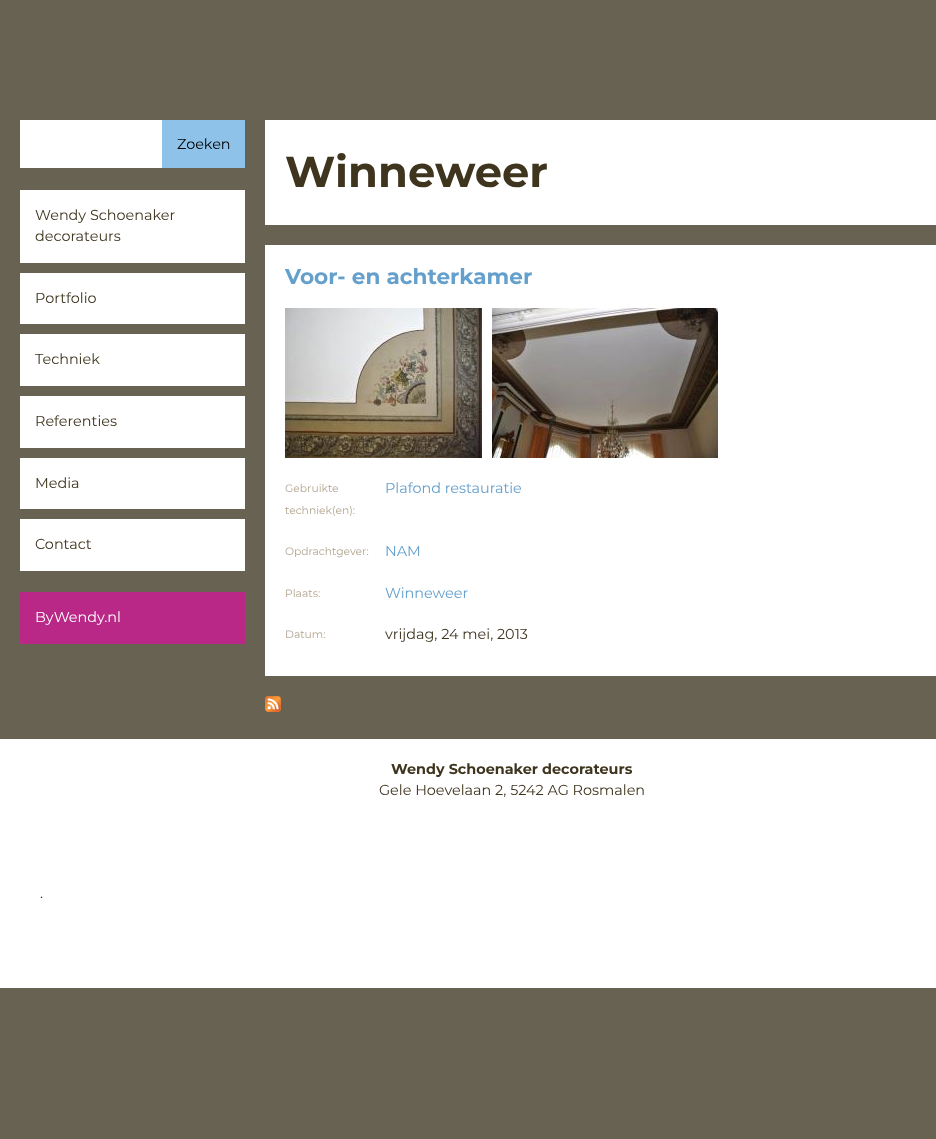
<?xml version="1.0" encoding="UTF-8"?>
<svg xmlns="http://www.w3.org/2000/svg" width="936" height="1139">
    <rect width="100%" height="100%" fill="#686253"/>
    <rect x="20" y="120" width="142" height="48" fill="#FFFFFF"/>
    <rect x="162" y="120" width="83" height="48" fill="#8EC2E9"/>
    <text x="177" y="149" font-family="Montserrat" font-size="14.4" fill="#000000">Zoeken</text>
    <rect x="20" y="190" width="225" height="73" fill="#FFFFFF"/>
    <text font-family="Montserrat" font-size="14.4" fill="#3F351F">
        <tspan x="35" y="220">Wendy Schoenaker</tspan>
        <tspan x="35" y="241">decorateurs</tspan>
    </text>
    <rect x="20" y="273" width="225" height="51" fill="#FFFFFF"/>
    <text x="35" y="303" font-family="Montserrat" font-size="14.4" fill="#3F351F">Portfolio</text>
    <rect x="20" y="334" width="225" height="52" fill="#FFFFFF"/>
    <text x="35" y="364" font-family="Montserrat" font-size="14.4" fill="#3F351F">Techniek</text>
    <rect x="20" y="396" width="225" height="52" fill="#FFFFFF"/>
    <text x="35" y="426" font-family="Montserrat" font-size="14.4" fill="#3F351F">Referenties</text>
    <rect x="20" y="458" width="225" height="51" fill="#FFFFFF"/>
    <text x="35" y="488" font-family="Montserrat" font-size="14.4" fill="#3F351F">Media</text>
    <rect x="20" y="519" width="225" height="52" fill="#FFFFFF"/>
    <text x="35" y="549" font-family="Montserrat" font-size="14.4" fill="#3F351F">Contact</text>
    <rect x="20" y="592" width="225" height="52" fill="#B92887"/>
    <text x="35" y="622" font-family="Montserrat" font-size="14.4" fill="#FFFFFF">ByWendy.nl</text>
    <rect x="265" y="120" width="671" height="105" fill="#FFFFFF"/>
    <text x="285" y="187" font-family="Montserrat" font-size="43.25" font-weight="700" fill="#3F351F">Winneweer</text>
    <rect x="265" y="245" width="671" height="431" fill="#FFFFFF"/>
    <text x="285" y="284" font-family="Montserrat" font-size="21.6" font-weight="700" fill="#65A0CC">Voor- en achterkamer</text>
    <image x="285" y="308" width="197" height="150" href="img_01.png"/>
    <image x="492" y="308" width="226" height="150" href="img_02.png"/>
    <text x="285" y="492" font-family="Montserrat" font-size="10.75" fill="#B2A58F">Gebruikte</text>
    <text x="285" y="514" font-family="Montserrat" font-size="10.75" fill="#B2A58F">techniek(en):</text>
    <text x="385" y="493" font-family="Montserrat" font-size="14.4" fill="#65A0CC">Plafond restauratie</text>
    <text x="285" y="555" font-family="Montserrat" font-size="10.75" fill="#B2A58F">Opdrachtgever:</text>
    <text x="385" y="556" font-family="Montserrat" font-size="14.4" fill="#65A0CC">NAM</text>
    <text x="285" y="597" font-family="Montserrat" font-size="10.75" fill="#B2A58F">Plaats:</text>
    <text x="385" y="598" font-family="Montserrat" font-size="14.4" fill="#65A0CC">Winneweer</text>
    <text x="285" y="638" font-family="Montserrat" font-size="10.75" fill="#B2A58F">Datum:</text>
    <text x="385" y="639" font-family="Montserrat" font-size="14.4" fill="#3F351F">vrijdag, 24 mei, 2013</text>
    <image x="265" y="696" width="16" height="16" href="img_03.png"/>
    <rect x="0" y="739" width="936" height="249" fill="#FFFFFF"/>
    <text x="391" y="774" font-family="Montserrat" font-size="14.4" font-weight="700" fill="#3F351F">Wendy Schoenaker decorateurs</text>
    <text x="379" y="795" font-family="Montserrat" font-size="14.4" fill="#3F351F">Gele Hoevelaan 2, 5242 AG Rosmalen</text>
    <text x="40" y="898" font-family="Montserrat" font-size="14.4" fill="#3F351F">.</text>
</svg>
